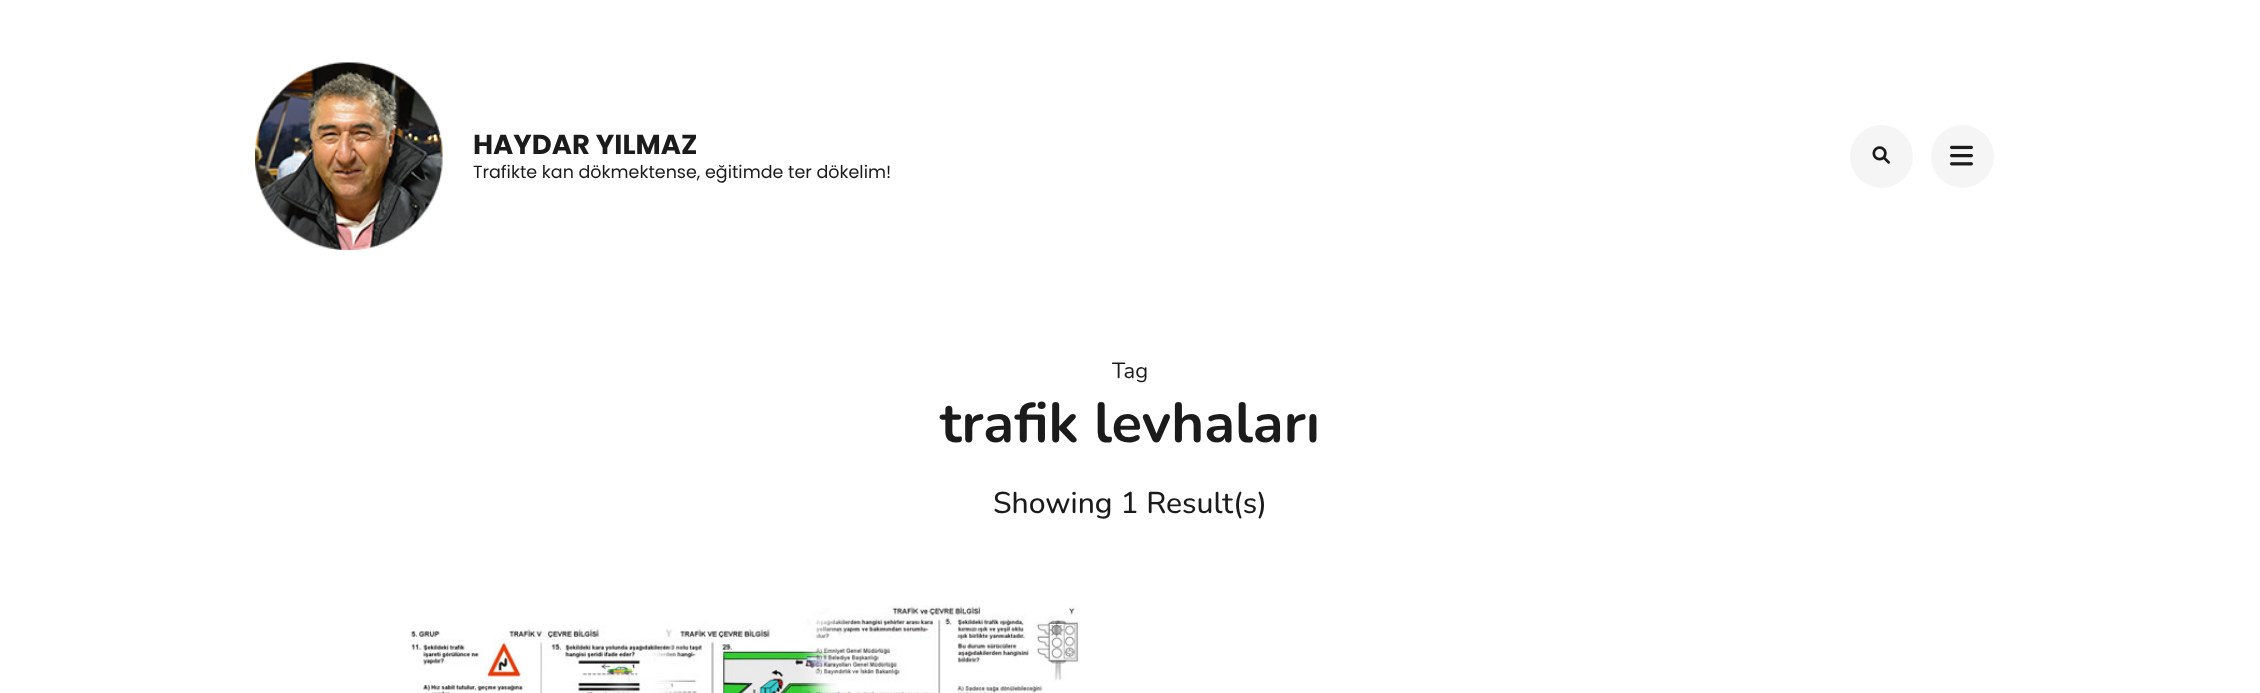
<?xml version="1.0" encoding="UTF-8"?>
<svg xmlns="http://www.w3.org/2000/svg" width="2260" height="693">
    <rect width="100%" height="100%" fill="#FFFFFF"/>
    <image x="255" y="62" width="188" height="188" href="img_01.png"/>
    <text x="473" y="154" font-family="Poppins" font-size="27.5" font-weight="700" fill="#1C1B1B">HAYDAR YILMAZ</text>
    <text x="473" y="178" font-family="Poppins" font-size="17.5" fill="#1C1B1B">Trafikte kan dökmektense, eğitimde ter dökelim!</text>
    <circle cx="1881.5" cy="156.5" r="31.5" fill="#F5F5F5"/>
    <image x="1872" y="146" width="18" height="18" href="img_02.png"/>
    <circle cx="1962.5" cy="156.5" r="31.5" fill="#F5F5F5"/>
    <image x="1950" y="145" width="23" height="21" href="img_03.png"/>
    <text x="1112" y="378" font-family="Nunito" font-size="22" fill="#1C1B1B">Tag</text>
    <text x="940" y="442" font-family="Nunito" font-size="56.25" font-weight="700" fill="#1C1B1B">trafik levhaları</text>
    <text x="993" y="513" font-family="Nunito" font-size="30" font-weight="500" fill="#1C1B1B">Showing 1 Result(s)</text>
    <image x="409" y="605" width="670" height="88" href="img_04.png"/>
</svg>
